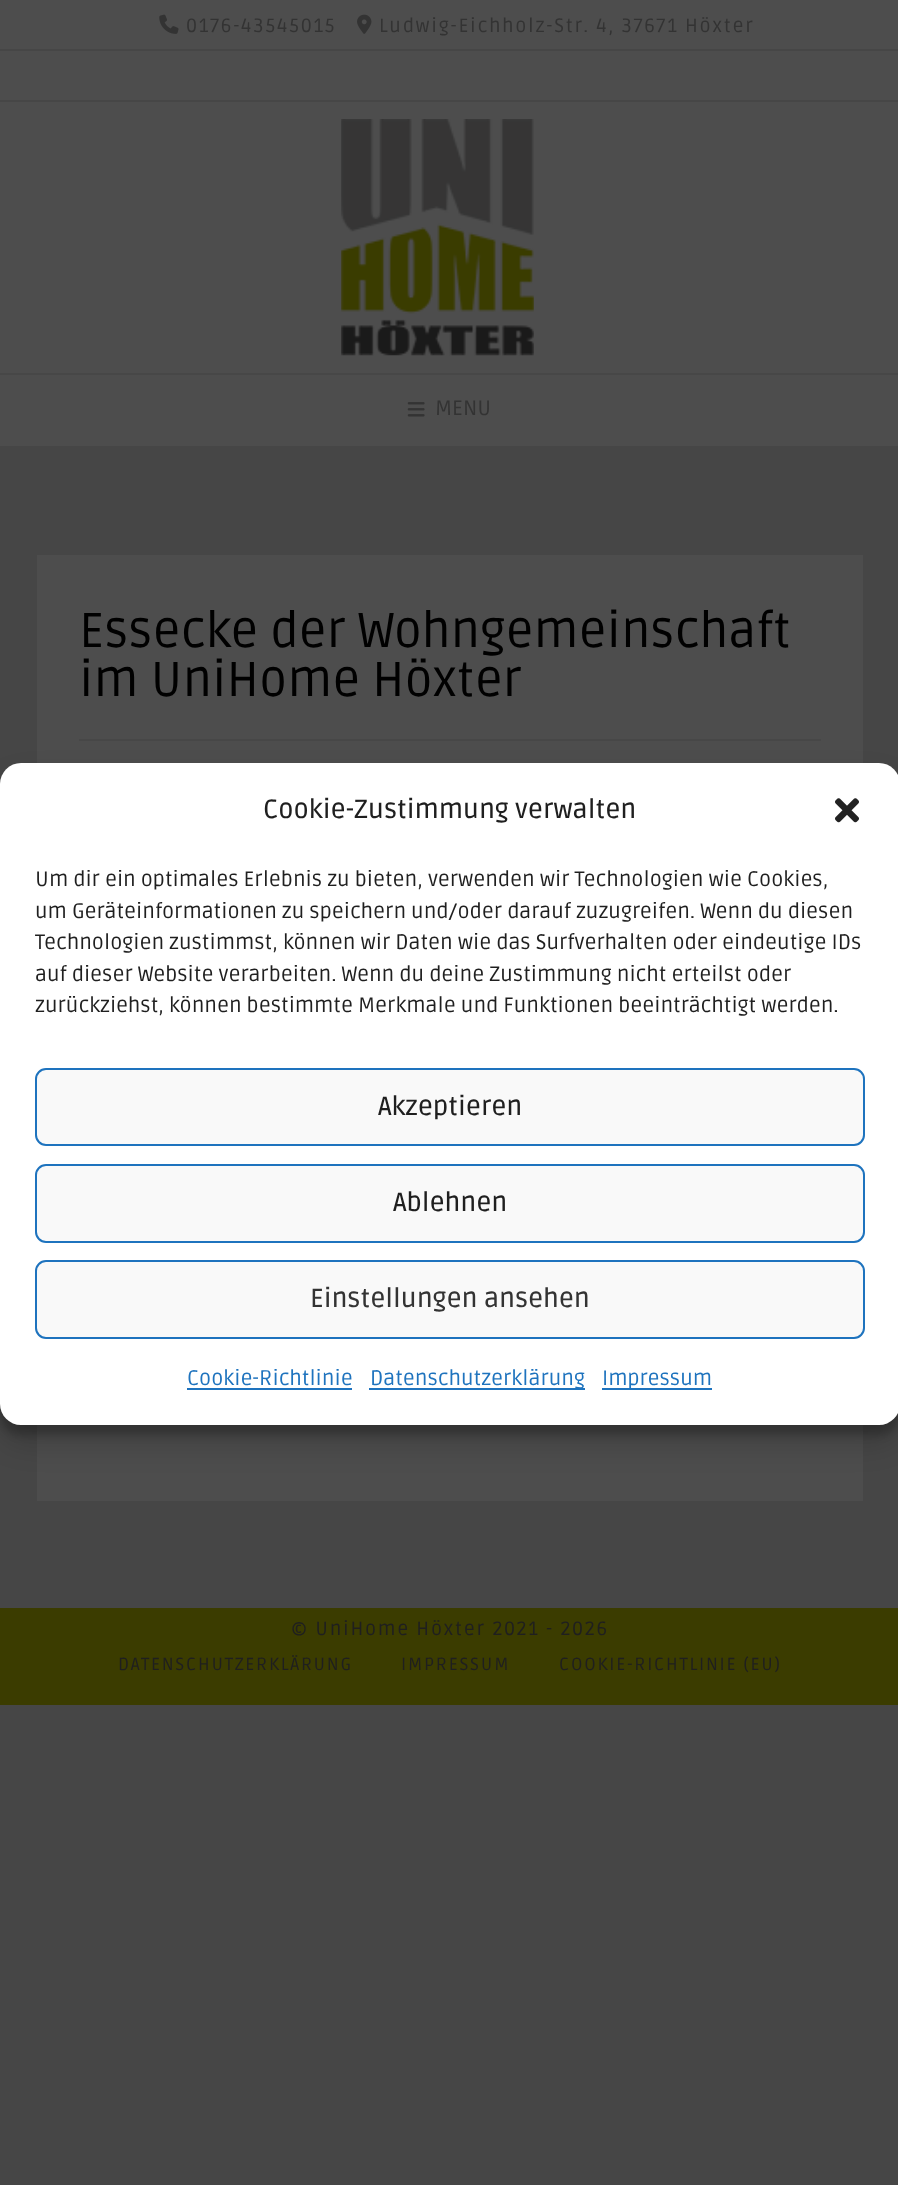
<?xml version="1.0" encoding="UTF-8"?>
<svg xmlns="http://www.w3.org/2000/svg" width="898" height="2185">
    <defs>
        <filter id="blur1" x="-50%" y="-200%" width="200%" height="500%"><feGaussianBlur stdDeviation="5"/></filter>
        <filter id="blur2" x="-50%" y="-200%" width="200%" height="500%"><feGaussianBlur stdDeviation="17.5"/></filter>
    </defs>
    <rect width="100%" height="100%" fill="#464646"/>
    <rect x="0" y="0" width="898" height="49" fill="#4D4D4D"/>
    <image x="159" y="14" width="20" height="20" href="img_01.png"/>
    <text x="186" y="32" font-family="Ruda" font-size="19.25" letter-spacing="1.75" fill="#333333">0176-43545015</text>
    <image x="357" y="14" width="15" height="20" href="img_02.png"/>
    <text x="379" y="32" font-family="Ruda" font-size="19.25" letter-spacing="1.75" fill="#333333">Ludwig-Eichholz-Str. 4, 37671 Höxter</text>
    <rect x="0" y="51" width="898" height="49" fill="#4D4D4D"/>
    <rect x="0" y="102" width="898" height="344" fill="#4D4D4D"/>
    <path d="M 0 373 V 375 H 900 V 103 V 373 Z" fill="#474747"/>
    <image x="341" y="119" width="193" height="237" href="img_03.png"/>
    <image x="407" y="402" width="18" height="15" href="img_04.png"/>
    <text x="435" y="415" font-family="Ruda" font-size="21" fill="#333333">MENU</text>
    <rect x="37" y="555" width="826" height="946" fill="#4D4D4D"/>
    <rect x="79" y="739" width="742" height="2" fill="#474747"/>
    <text font-family="Ruda" font-size="49" fill="#000000">
        <tspan x="79" y="647">Essecke der Wohngemeinschaft</tspan>
        <tspan x="79" y="696">im UniHome Höxter</tspan>
    </text>
    <rect x="0" y="1608" width="898" height="97" fill="#3B3C00"/>
    <text x="291" y="1635" font-family="Ruda" font-size="19.25" letter-spacing="1.75" fill="#1F1F1F">© UniHome Höxter 2021 - 2026</text>
    <text x="118" y="1670" font-family="Ruda" font-size="17.5" letter-spacing="1.75" fill="#1F1F1F">DATENSCHUTZERKLÄRUNG</text>
    <text x="401" y="1670" font-family="Ruda" font-size="17.5" letter-spacing="1.75" fill="#1F1F1F">IMPRESSUM</text>
    <text x="559" y="1670" font-family="Ruda" font-size="17.5" letter-spacing="1.75" fill="#1F1F1F">COOKIE-RICHTLINIE (EU)</text>
    <rect x="0" y="774" width="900" height="661" rx="21" fill="#000000" fill-opacity="0.23" filter="url(#blur1)"/>
    <rect x="0" y="781" width="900" height="661" rx="21" fill="#000000" fill-opacity="0.19" filter="url(#blur2)"/>
    <rect x="0" y="763" width="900" height="662" rx="21" fill="#FFFFFF"/>
    <text x="263" y="818" font-family="Ruda" font-size="26.25" font-weight="500" fill="#1F1F1F">Cookie-Zustimmung verwalten</text>
    <image x="835" y="798" width="24" height="25" href="img_05.png"/>
    <text font-family="Ruda" font-size="21" fill="#1F1F1F">
        <tspan x="35" y="886">Um dir ein optimales Erlebnis zu bieten, verwenden wir Technologien wie Cookies,</tspan>
        <tspan x="35" y="918">um Geräteinformationen zu speichern und/oder darauf zuzugreifen. Wenn du diesen</tspan>
        <tspan x="35" y="949">Technologien zustimmst, können wir Daten wie das Surfverhalten oder eindeutige IDs</tspan>
        <tspan x="35" y="981">auf dieser Website verarbeiten. Wenn du deine Zustimmung nicht erteilst oder</tspan>
        <tspan x="35" y="1012">zurückziehst, können bestimmte Merkmale und Funktionen beeinträchtigt werden.</tspan>
    </text>
    <rect x="36" y="1069" width="828" height="76" rx="10" fill="#F9F9F9" stroke="#1E73BE" stroke-width="2"/>
    <text x="378" y="1115" font-family="Ruda" font-size="26.25" font-weight="500" fill="#1F1F1F">Akzeptieren</text>
    <rect x="36" y="1165" width="828" height="77" rx="10" fill="#F9F9F9" stroke="#1E73BE" stroke-width="2"/>
    <text x="393" y="1211" font-family="Ruda" font-size="26.25" font-weight="500" fill="#1F1F1F">Ablehnen</text>
    <rect x="36" y="1261" width="828" height="77" rx="10" fill="#F9F9F9" stroke="#1E73BE" stroke-width="2"/>
    <text x="310" y="1307" font-family="Ruda" font-size="26.25" font-weight="500" fill="#333333">Einstellungen ansehen</text>
    <text x="187" y="1385" font-family="Ruda" font-size="21" fill="#1E73BE">Cookie-Richtlinie</text>
    <rect x="187" y="1388" width="165" height="2" fill="#1E73BE"/>
    <rect x="369" y="1388" width="216" height="2" fill="#1E73BE"/>
    <text x="370" y="1385" font-family="Ruda" font-size="21" fill="#1E73BE">Datenschutzerklärung</text>
    <rect x="602" y="1388" width="110" height="2" fill="#1E73BE"/>
    <text x="602" y="1385" font-family="Ruda" font-size="21" fill="#1E73BE">Impressum</text>
</svg>
